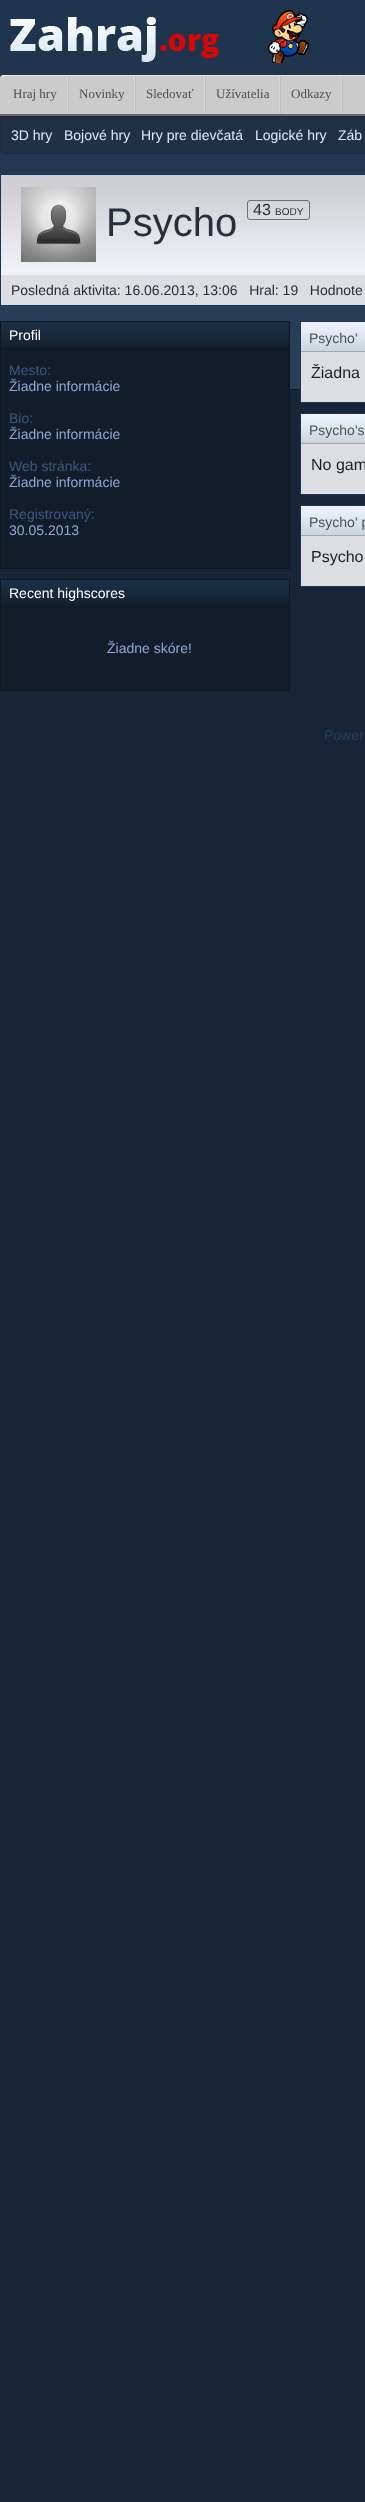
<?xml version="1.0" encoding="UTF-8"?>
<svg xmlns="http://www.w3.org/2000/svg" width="365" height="2502">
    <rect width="100%" height="100%" fill="#182437"/>
    <image x="0" y="0" width="365" height="390" href="img_01.png"/>
    <image x="10" y="10" width="299" height="53" href="img_02.png"/>
    <image x="0" y="75" width="365" height="41" href="img_03.png"/>
    <image x="67" y="76" width="2" height="38" href="img_04.png"/>
    <text x="13" y="98" font-family="Liberation Serif" font-size="13" fill="#505050">Hraj hry</text>
    <image x="134" y="76" width="2" height="38" href="img_04.png"/>
    <text x="79" y="98" font-family="Liberation Serif" font-size="13" fill="#505050">Novinky</text>
    <image x="204" y="76" width="2" height="38" href="img_04.png"/>
    <text x="146" y="98" font-family="Liberation Serif" font-size="13" fill="#505050">Sledovať</text>
    <image x="279" y="76" width="2" height="38" href="img_04.png"/>
    <text x="216" y="98" font-family="Liberation Serif" font-size="13" fill="#505050">Užívatelia</text>
    <image x="341" y="76" width="2" height="38" href="img_04.png"/>
    <text x="291" y="98" font-family="Liberation Serif" font-size="13" fill="#505050">Odkazy</text>
    <path d="M 0.5 116.5 H 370.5 V 149 C 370.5 151.5 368.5 153.5 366 153.5 H 5 C 2.5 153.5 0.5 151.5 0.5 149 Z" fill="#203146" stroke="#1F2B40"/>
    <text x="11" y="140" font-family="Liberation Sans" font-size="14" fill="#DEE9FF">3D hry</text>
    <text x="64" y="140" font-family="Liberation Sans" font-size="14" fill="#DEE9FF">Bojové hry</text>
    <text x="141" y="140" font-family="Liberation Sans" font-size="14" fill="#DEE9FF">Hry pre dievčatá</text>
    <text x="255" y="140" font-family="Liberation Sans" font-size="14" fill="#DEE9FF">Logické hry</text>
    <text x="338" y="140" font-family="Liberation Sans" font-size="14" fill="#DEE9FF">Záb</text>
    <image x="1" y="175" width="364" height="100" href="img_05.png"/>
    <rect x="0" y="174" width="365" height="1" fill="#1C355C"/>
    <rect x="0" y="174" width="1" height="101" fill="#1C355C"/>
    <image x="21" y="187" width="75" height="75" href="img_06.png"/>
    <text x="106" y="236" font-family="Liberation Sans" font-size="40" fill="#282F3A">Psycho</text>
    <rect x="247.5" y="200.5" width="62" height="19" rx="2.5" fill="none" stroke="#6E6E73"/>
    <text x="253" y="215" font-family="Liberation Sans" font-size="16" fill="#2C2C2E">43</text>
    <text x="275" y="215" font-family="Liberation Sans" font-size="10" fill="#2C2C2E">BODY</text>
    <rect x="1" y="275" width="364" height="30" fill="#DCDEE1"/>
    <rect x="0" y="305" width="365" height="1" fill="#1C355C"/>
    <rect x="0" y="275" width="1" height="31" fill="#1C355C"/>
    <text x="11" y="295" font-family="Liberation Sans" font-size="14" fill="#282F3A" xml:space="preserve">Posledná aktivita: 16.06.2013, 13:06   Hral: 19   Hodnote</text>
    <rect x="1" y="349" width="288" height="219" fill="#121D2B"/>
    <rect x="0.5" y="321.5" width="289" height="247" fill="none" stroke="#0E1823"/>
    <image x="1" y="322" width="288" height="26" href="img_07.png"/>
    <rect x="1" y="348" width="288" height="1" fill="#0E1823"/>
    <text x="9" y="340" font-family="Liberation Sans" font-size="14" fill="#FFFFFF">Profil</text>
    <text x="9" y="375" font-family="Liberation Sans" font-size="14" fill="#3D5680">Mesto:</text>
    <text x="9" y="391" font-family="Liberation Sans" font-size="14" fill="#8FA9D4">Žiadne informácie</text>
    <text x="9" y="423" font-family="Liberation Sans" font-size="14" fill="#3D5680">Bio:</text>
    <text x="9" y="439" font-family="Liberation Sans" font-size="14" fill="#8FA9D4">Žiadne informácie</text>
    <text x="9" y="471" font-family="Liberation Sans" font-size="14" fill="#3D5680">Web stránka:</text>
    <text x="9" y="487" font-family="Liberation Sans" font-size="14" fill="#8FA9D4">Žiadne informácie</text>
    <text x="9" y="519" font-family="Liberation Sans" font-size="14" fill="#3D5680">Registrovaný:</text>
    <text x="9" y="535" font-family="Liberation Sans" font-size="14" fill="#8FA9D4">30.05.2013</text>
    <rect x="1" y="607" width="288" height="83" fill="#121D2B"/>
    <rect x="0.5" y="579.5" width="289" height="111" fill="none" stroke="#0E1823"/>
    <image x="1" y="580" width="288" height="26" href="img_07.png"/>
    <rect x="1" y="606" width="288" height="1" fill="#0E1823"/>
    <text x="9" y="598" font-family="Liberation Sans" font-size="14" fill="#FFFFFF">Recent highscores</text>
    <text x="107" y="653" font-family="Liberation Sans" font-size="14" fill="#8FA9D4">Žiadne skóre!</text>
    <rect x="301" y="352" width="64" height="50" fill="#DCDEE1"/>
    <rect x="300.5" y="321.5" width="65" height="81" fill="none" stroke="#1C355C"/>
    <image x="301" y="322" width="64" height="29" href="img_08.png"/>
    <rect x="301" y="351" width="64" height="1" fill="#A6A6A6"/>
    <text x="309" y="343" font-family="Liberation Sans" font-size="14" fill="#505050">Psycho'</text>
    <text x="311" y="378" font-family="Liberation Sans" font-size="16" fill="#1E1F22">Žiadna</text>
    <rect x="301" y="444" width="64" height="50" fill="#DCDEE1"/>
    <rect x="300.5" y="413.5" width="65" height="81" fill="none" stroke="#1C355C"/>
    <image x="301" y="414" width="64" height="29" href="img_08.png"/>
    <rect x="301" y="443" width="64" height="1" fill="#A6A6A6"/>
    <text x="309" y="435" font-family="Liberation Sans" font-size="14" fill="#505050">Psycho's</text>
    <text x="311" y="470" font-family="Liberation Sans" font-size="16" fill="#1E1F22">No gam</text>
    <rect x="301" y="536" width="64" height="50" fill="#DCDEE1"/>
    <rect x="300.5" y="505.5" width="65" height="81" fill="none" stroke="#1C355C"/>
    <image x="301" y="506" width="64" height="29" href="img_08.png"/>
    <rect x="301" y="535" width="64" height="1" fill="#A6A6A6"/>
    <text x="309" y="527" font-family="Liberation Sans" font-size="14" fill="#505050">Psycho' p</text>
    <text x="311" y="562" font-family="Liberation Sans" font-size="16" fill="#1E1F22">Psycho</text>
    <text x="324" y="740" font-family="Liberation Sans" font-size="14" fill="#234164">Power</text>
</svg>
